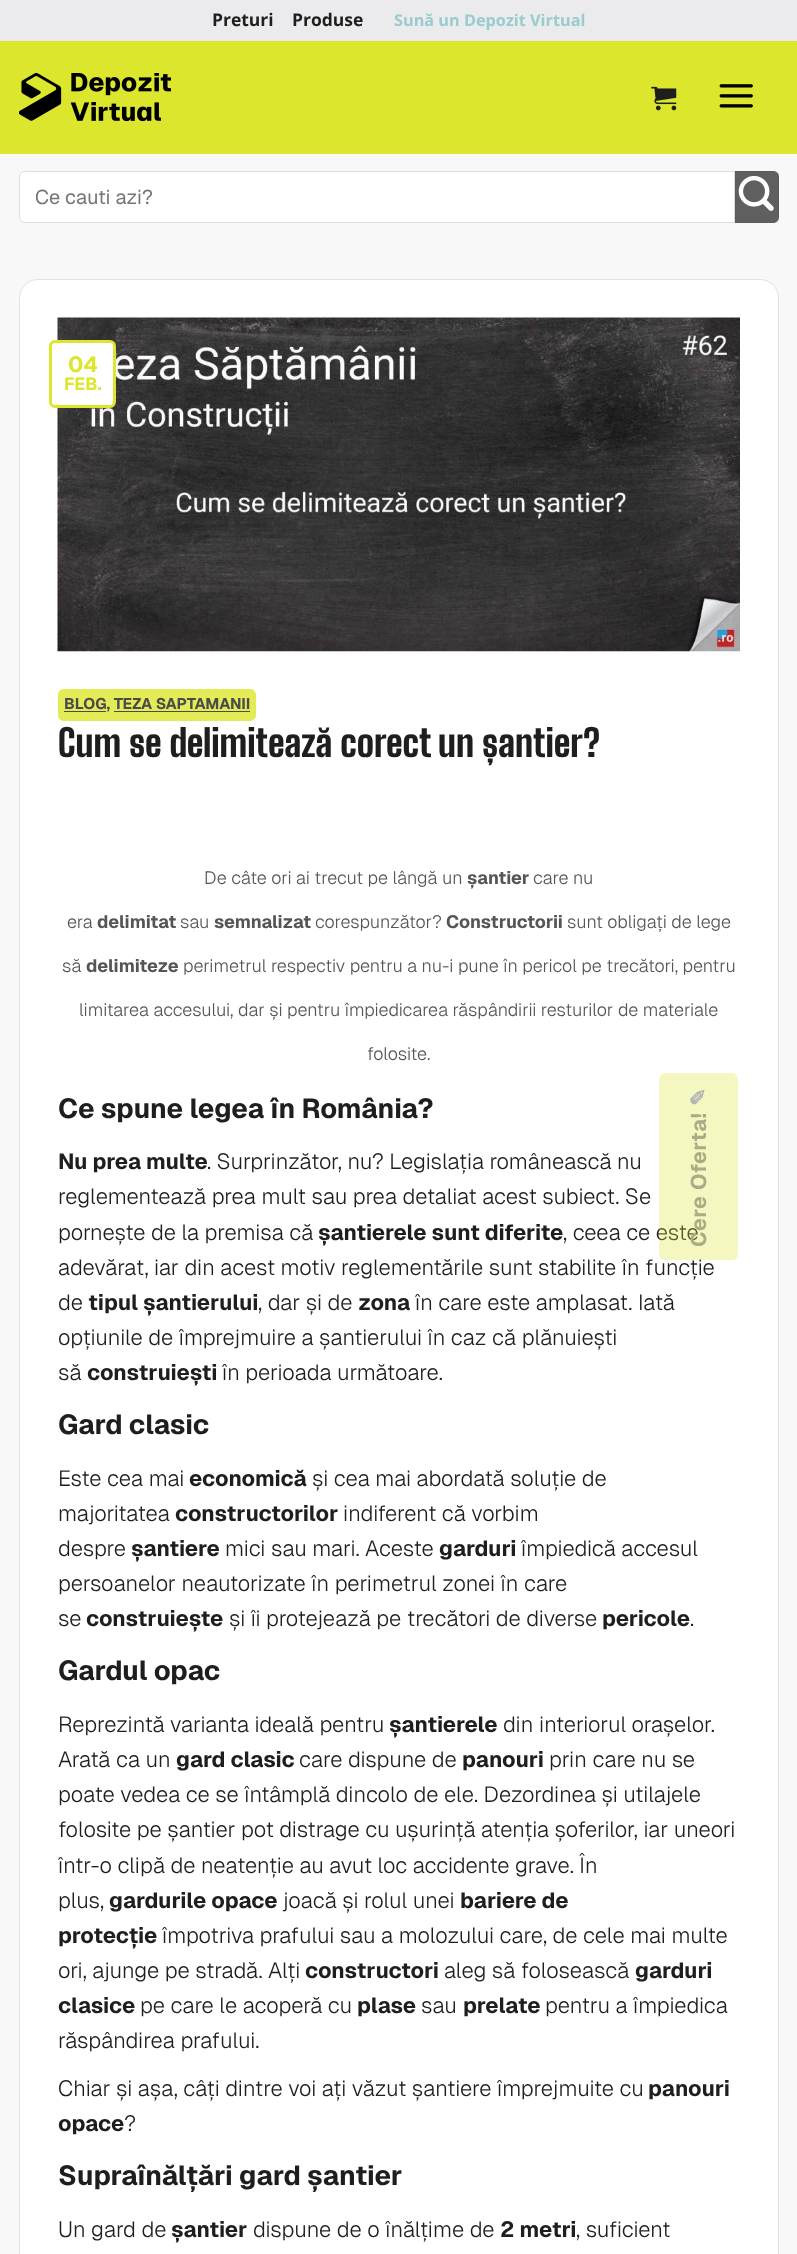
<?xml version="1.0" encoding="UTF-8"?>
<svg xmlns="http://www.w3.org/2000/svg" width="797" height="2254">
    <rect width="100%" height="100%" fill="#F8F8F8"/>
    <rect x="0" y="0" width="797" height="41" fill="#EBEBED"/>
    <text x="212" y="26" font-family="Open Sans" font-size="17.5" font-weight="700" fill="#1E1E1E">Preturi</text>
    <text x="292" y="26" font-family="Open Sans" font-size="17.5" font-weight="700" fill="#1E1E1E">Produse</text>
    <text x="394" y="26" font-family="Open Sans" font-size="16.25" font-weight="700" fill="#99CCCC">Sună un Depozit Virtual</text>
    <rect x="0" y="41" width="797" height="113" fill="#DCE62D"/>
    <image x="19" y="73" width="152" height="48" href="img_01.png"/>
    <image x="651" y="86" width="26" height="25" href="img_02.png"/>
    <image x="719" y="84" width="34" height="24" href="img_03.png"/>
    <path d="M 25 171.5 H 734.5 V 222.5 H 25 C 22 222.5 19.5 220 19.5 217 V 177 C 19.5 174 22 171.5 25 171.5 Z" fill="#FFFFFF" stroke="#DDDDDD"/>
    <text x="35" y="204" font-family="Geist" font-size="20" fill="#757575">Ce cauti azi?</text>
    <path d="M 735 171 H 773 C 776.5 171 779 173.5 779 177 V 217 C 779 220.5 776.5 223 773 223 H 735 Z" fill="#5F5F5F"/>
    <rect x="735.5" y="171.5" width="43" height="51" fill="none" stroke="#000000" stroke-opacity="0.05"/>
    <image x="738" y="175" width="36" height="36" href="img_04.png"/>
    <rect x="19.5" y="279.5" width="759" height="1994" rx="18.5" fill="#FFFFFF" stroke="#E1E1E1"/>
    <image x="57" y="317" width="683" height="335" href="img_05.png"/>
    <rect x="50.5" y="341.5" width="64" height="65" rx="4.5" fill="#FFFFFF" stroke="#DCE62D" stroke-width="3"/>
    <text x="68" y="372" font-family="Geist" font-size="22" font-weight="700" fill="#DCE62D">04</text>
    <text x="64" y="390" font-family="Geist" font-size="17.5" font-weight="700" fill="#DCE62D">FEB.</text>
    <path d="M 64 689 H 106 V 721 H 64 C 60.5 721 58 718.5 58 715 V 695 C 58 691.5 60.5 689 64 689 Z" fill="#E3EB57"/>
    <rect x="106" y="689" width="8" height="32" fill="#E3EB57"/>
    <path d="M 114 689 H 250 C 253.5 689 256 691.5 256 695 V 715 C 256 718.5 253.5 721 250 721 H 114 Z" fill="#E3EB57"/>
    <rect x="64" y="711" width="42" height="1" fill="#4B4B4B"/>
    <text x="64" y="709" font-family="Geist" font-size="15.4" font-weight="700" fill="#4B4B4B">BLOG, TEZA SAPTAMANII</text>
    <rect x="114" y="711" width="136" height="1" fill="#4B4B4B"/>
    <text x="58" y="757" font-family="Big Shoulders" font-size="37.4" font-weight="800" fill="#1E1E1E">Cum se delimitează corect un șantier?</text>
    <text x="204" y="884" font-family="Geist" font-size="18" font-weight="300" fill="#555555">De câte ori ai trecut pe lângă un</text>
    <text x="467" y="884" font-family="Geist" font-size="18" font-weight="700" fill="#555555">șantier</text>
    <text x="533" y="884" font-family="Geist" font-size="18" font-weight="300" fill="#555555">care nu</text>
    <text x="67" y="928" font-family="Geist" font-size="18" font-weight="300" fill="#555555">era</text>
    <text x="97" y="928" font-family="Geist" font-size="18" font-weight="700" fill="#555555">delimitat</text>
    <text x="180" y="928" font-family="Geist" font-size="18" font-weight="300" fill="#555555">sau</text>
    <text x="214" y="928" font-family="Geist" font-size="18" font-weight="700" fill="#555555">semnalizat</text>
    <text x="315" y="928" font-family="Geist" font-size="18" font-weight="300" fill="#555555">corespunzător?</text>
    <text x="446" y="928" font-family="Geist" font-size="18" font-weight="700" fill="#555555">Constructorii</text>
    <text x="567" y="928" font-family="Geist" font-size="18" font-weight="300" fill="#555555">sunt obligați de lege</text>
    <text x="62" y="972" font-family="Geist" font-size="18" font-weight="300" fill="#555555">să</text>
    <text x="86" y="972" font-family="Geist" font-size="18" font-weight="700" fill="#555555">delimiteze</text>
    <text x="183" y="972" font-family="Geist" font-size="18" font-weight="300" fill="#555555">perimetrul respectiv pentru a nu-i pune în pericol pe trecători, pentru</text>
    <text x="79" y="1016" font-family="Geist" font-size="18" font-weight="300" fill="#555555">limitarea accesului, dar și pentru împiedicarea răspândirii resturilor de materiale</text>
    <text x="367" y="1060" font-family="Geist" font-size="18" font-weight="300" fill="#555555">folosite.</text>
    <text x="58" y="1118" font-family="Geist" font-size="27.5" font-weight="700" fill="#1E1E1E">Ce spune legea în România?</text>
    <text x="58" y="1169" font-family="Geist" font-size="22" font-weight="700" fill="#1E1E1E">Nu prea multe</text>
    <text x="207" y="1169" font-family="Geist" font-size="22" font-weight="300" fill="#1E1E1E">. Surprinzător, nu? Legislația românească nu</text>
    <text font-family="Geist" font-size="22" font-weight="300" fill="#1E1E1E">
        <tspan x="58" y="1204">reglementează prea mult sau prea detaliat acest subiect. Se</tspan>
        <tspan x="58" y="1240">pornește de la premisa că</tspan>
    </text>
    <text x="318" y="1240" font-family="Geist" font-size="22" font-weight="700" fill="#1E1E1E">șantierele sunt diferite</text>
    <text x="563" y="1240" font-family="Geist" font-size="22" font-weight="300" fill="#1E1E1E">, ceea ce este</text>
    <text font-family="Geist" font-size="22" font-weight="300" fill="#1E1E1E">
        <tspan x="58" y="1275">adevărat, iar din acest motiv reglementările sunt stabilite în funcție</tspan>
        <tspan x="58" y="1310">de</tspan>
    </text>
    <text x="88" y="1310" font-family="Geist" font-size="22" font-weight="700" fill="#1E1E1E">tipul șantierului</text>
    <text x="258" y="1310" font-family="Geist" font-size="22" font-weight="300" fill="#1E1E1E">, dar și de</text>
    <text x="358" y="1310" font-family="Geist" font-size="22" font-weight="700" fill="#1E1E1E">zona</text>
    <text x="415" y="1310" font-family="Geist" font-size="22" font-weight="300" fill="#1E1E1E">în care este amplasat. Iată</text>
    <text font-family="Geist" font-size="22" font-weight="300" fill="#1E1E1E">
        <tspan x="58" y="1345">opțiunile de împrejmuire a șantierului în caz că plănuiești</tspan>
        <tspan x="58" y="1380">să</tspan>
    </text>
    <text x="87" y="1380" font-family="Geist" font-size="22" font-weight="700" fill="#1E1E1E">construiești</text>
    <text x="222" y="1380" font-family="Geist" font-size="22" font-weight="300" fill="#1E1E1E">în perioada următoare.</text>
    <text x="58" y="1434" font-family="Geist" font-size="27.5" font-weight="700" fill="#1E1E1E">Gard clasic</text>
    <text x="58" y="1486" font-family="Geist" font-size="22" font-weight="300" fill="#1E1E1E">Este cea mai</text>
    <text x="189" y="1486" font-family="Geist" font-size="22" font-weight="700" fill="#1E1E1E">economică</text>
    <text x="312" y="1486" font-family="Geist" font-size="22" font-weight="300" fill="#1E1E1E">și cea mai abordată soluție de</text>
    <text x="58" y="1521" font-family="Geist" font-size="22" font-weight="300" fill="#1E1E1E">majoritatea</text>
    <text x="175" y="1521" font-family="Geist" font-size="22" font-weight="700" fill="#1E1E1E">constructorilor</text>
    <text x="343" y="1521" font-family="Geist" font-size="22" font-weight="300" fill="#1E1E1E">indiferent că vorbim</text>
    <text x="58" y="1556" font-family="Geist" font-size="22" font-weight="300" fill="#1E1E1E">despre</text>
    <text x="131" y="1556" font-family="Geist" font-size="22" font-weight="700" fill="#1E1E1E">șantiere</text>
    <text x="225" y="1556" font-family="Geist" font-size="22" font-weight="300" fill="#1E1E1E">mici sau mari. Aceste</text>
    <text x="439" y="1556" font-family="Geist" font-size="22" font-weight="700" fill="#1E1E1E">garduri</text>
    <text x="521" y="1556" font-family="Geist" font-size="22" font-weight="300" fill="#1E1E1E">împiedică accesul</text>
    <text font-family="Geist" font-size="22" font-weight="300" fill="#1E1E1E">
        <tspan x="58" y="1591">persoanelor neautorizate în perimetrul zonei în care</tspan>
        <tspan x="58" y="1626">se</tspan>
    </text>
    <text x="86" y="1626" font-family="Geist" font-size="22" font-weight="700" fill="#1E1E1E">construiește</text>
    <text x="229" y="1626" font-family="Geist" font-size="22" font-weight="300" fill="#1E1E1E">și îi protejează pe trecători de diverse</text>
    <text x="602" y="1626" font-family="Geist" font-size="22" font-weight="700" fill="#1E1E1E">pericole</text>
    <text x="690" y="1626" font-family="Geist" font-size="22" font-weight="300" fill="#1E1E1E">.</text>
    <text x="58" y="1680" font-family="Geist" font-size="27.5" font-weight="700" fill="#1E1E1E">Gardul opac</text>
    <text x="58" y="1732" font-family="Geist" font-size="22" font-weight="300" fill="#1E1E1E">Reprezintă varianta ideală pentru</text>
    <text x="389" y="1732" font-family="Geist" font-size="22" font-weight="700" fill="#1E1E1E">șantierele</text>
    <text x="503" y="1732" font-family="Geist" font-size="22" font-weight="300" fill="#1E1E1E">din interiorul orașelor.</text>
    <text x="58" y="1767" font-family="Geist" font-size="22" font-weight="300" fill="#1E1E1E">Arată ca un</text>
    <text x="176" y="1767" font-family="Geist" font-size="22" font-weight="700" fill="#1E1E1E">gard clasic</text>
    <text x="299" y="1767" font-family="Geist" font-size="22" font-weight="300" fill="#1E1E1E">care dispune de</text>
    <text x="462" y="1767" font-family="Geist" font-size="22" font-weight="700" fill="#1E1E1E">panouri</text>
    <text x="549" y="1767" font-family="Geist" font-size="22" font-weight="300" fill="#1E1E1E">prin care nu se</text>
    <text font-family="Geist" font-size="22" font-weight="300" fill="#1E1E1E">
        <tspan x="58" y="1802">poate vedea ce se întâmplă dincolo de ele. Dezordinea și utilajele</tspan>
        <tspan x="58" y="1837">folosite pe șantier pot distrage cu ușurință atenția șoferilor, iar uneori</tspan>
        <tspan x="58" y="1873">într-o clipă de neatenție au avut loc accidente grave. În</tspan>
        <tspan x="58" y="1908">plus,</tspan>
    </text>
    <text x="109" y="1908" font-family="Geist" font-size="22" font-weight="700" fill="#1E1E1E">gardurile opace</text>
    <text x="283" y="1908" font-family="Geist" font-size="22" font-weight="300" fill="#1E1E1E">joacă și rolul unei</text>
    <text x="460" y="1908" font-family="Geist" font-size="22" font-weight="700" fill="#1E1E1E">bariere de</text>
    <text x="58" y="1943" font-family="Geist" font-size="22" font-weight="700" fill="#1E1E1E">protecție</text>
    <text x="162" y="1943" font-family="Geist" font-size="22" font-weight="300" fill="#1E1E1E">împotriva prafului sau a molozului care, de cele mai multe</text>
    <text x="58" y="1978" font-family="Geist" font-size="22" font-weight="300" fill="#1E1E1E">ori, ajunge pe stradă. Alți</text>
    <text x="305" y="1978" font-family="Geist" font-size="22" font-weight="700" fill="#1E1E1E">constructori</text>
    <text x="444" y="1978" font-family="Geist" font-size="22" font-weight="300" fill="#1E1E1E">aleg să folosească</text>
    <text x="635" y="1978" font-family="Geist" font-size="22" font-weight="700" fill="#1E1E1E">garduri</text>
    <text x="58" y="2013" font-family="Geist" font-size="22" font-weight="700" fill="#1E1E1E">clasice</text>
    <text x="140" y="2013" font-family="Geist" font-size="22" font-weight="300" fill="#1E1E1E">pe care le acoperă cu</text>
    <text x="357" y="2013" font-family="Geist" font-size="22" font-weight="700" fill="#1E1E1E">plase</text>
    <text x="421" y="2013" font-family="Geist" font-size="22" font-weight="300" fill="#1E1E1E">sau</text>
    <text x="463" y="2013" font-family="Geist" font-size="22" font-weight="700" fill="#1E1E1E">prelate</text>
    <text x="545" y="2013" font-family="Geist" font-size="22" font-weight="300" fill="#1E1E1E">pentru a împiedica</text>
    <text x="58" y="2048" font-family="Geist" font-size="22" font-weight="300" fill="#1E1E1E">răspândirea prafului.</text>
    <text x="58" y="2096" font-family="Geist" font-size="22" font-weight="300" fill="#1E1E1E">Chiar și așa, câți dintre voi ați văzut șantiere împrejmuite cu</text>
    <text x="648" y="2096" font-family="Geist" font-size="22" font-weight="700" fill="#1E1E1E">panouri</text>
    <text x="58" y="2131" font-family="Geist" font-size="22" font-weight="700" fill="#1E1E1E">opace</text>
    <text x="124" y="2131" font-family="Geist" font-size="22" font-weight="300" fill="#1E1E1E">?</text>
    <text x="58" y="2185" font-family="Geist" font-size="27.5" font-weight="700" fill="#1E1E1E">Supraînălțări gard șantier</text>
    <text x="58" y="2237" font-family="Geist" font-size="22" font-weight="300" fill="#1E1E1E">Un gard de</text>
    <text x="171" y="2237" font-family="Geist" font-size="22" font-weight="700" fill="#1E1E1E">șantier</text>
    <text x="253" y="2237" font-family="Geist" font-size="22" font-weight="300" fill="#1E1E1E">dispune de o înălțime de</text>
    <text x="500" y="2237" font-family="Geist" font-size="22" font-weight="700" fill="#1E1E1E">2 metri</text>
    <text x="576" y="2237" font-family="Geist" font-size="22" font-weight="300" fill="#1E1E1E">, suficient</text>
    <path d="M 659 1254 V 1080 C 659 1076 662 1073 666 1073 H 732 C 735 1073 738 1076 738 1080 V 1254 C 738 1258 735 1260 732 1260 H 666 C 662 1260 659 1258 659 1254 Z" fill="#DCE62D" fill-opacity="0.3"/>
    <text x="706" y="1106" transform="rotate(-90 706 1106)" font-family="DejaVu Sans" font-size="21.25" font-weight="700" letter-spacing="0.6" fill="#B3B3B3">✎</text>
    <text x="706" y="1247" transform="rotate(-90 706 1247)" font-family="Geist" font-size="21.25" font-weight="700" letter-spacing="0.6" fill="#AAAC85">Cere Oferta!</text>
</svg>
